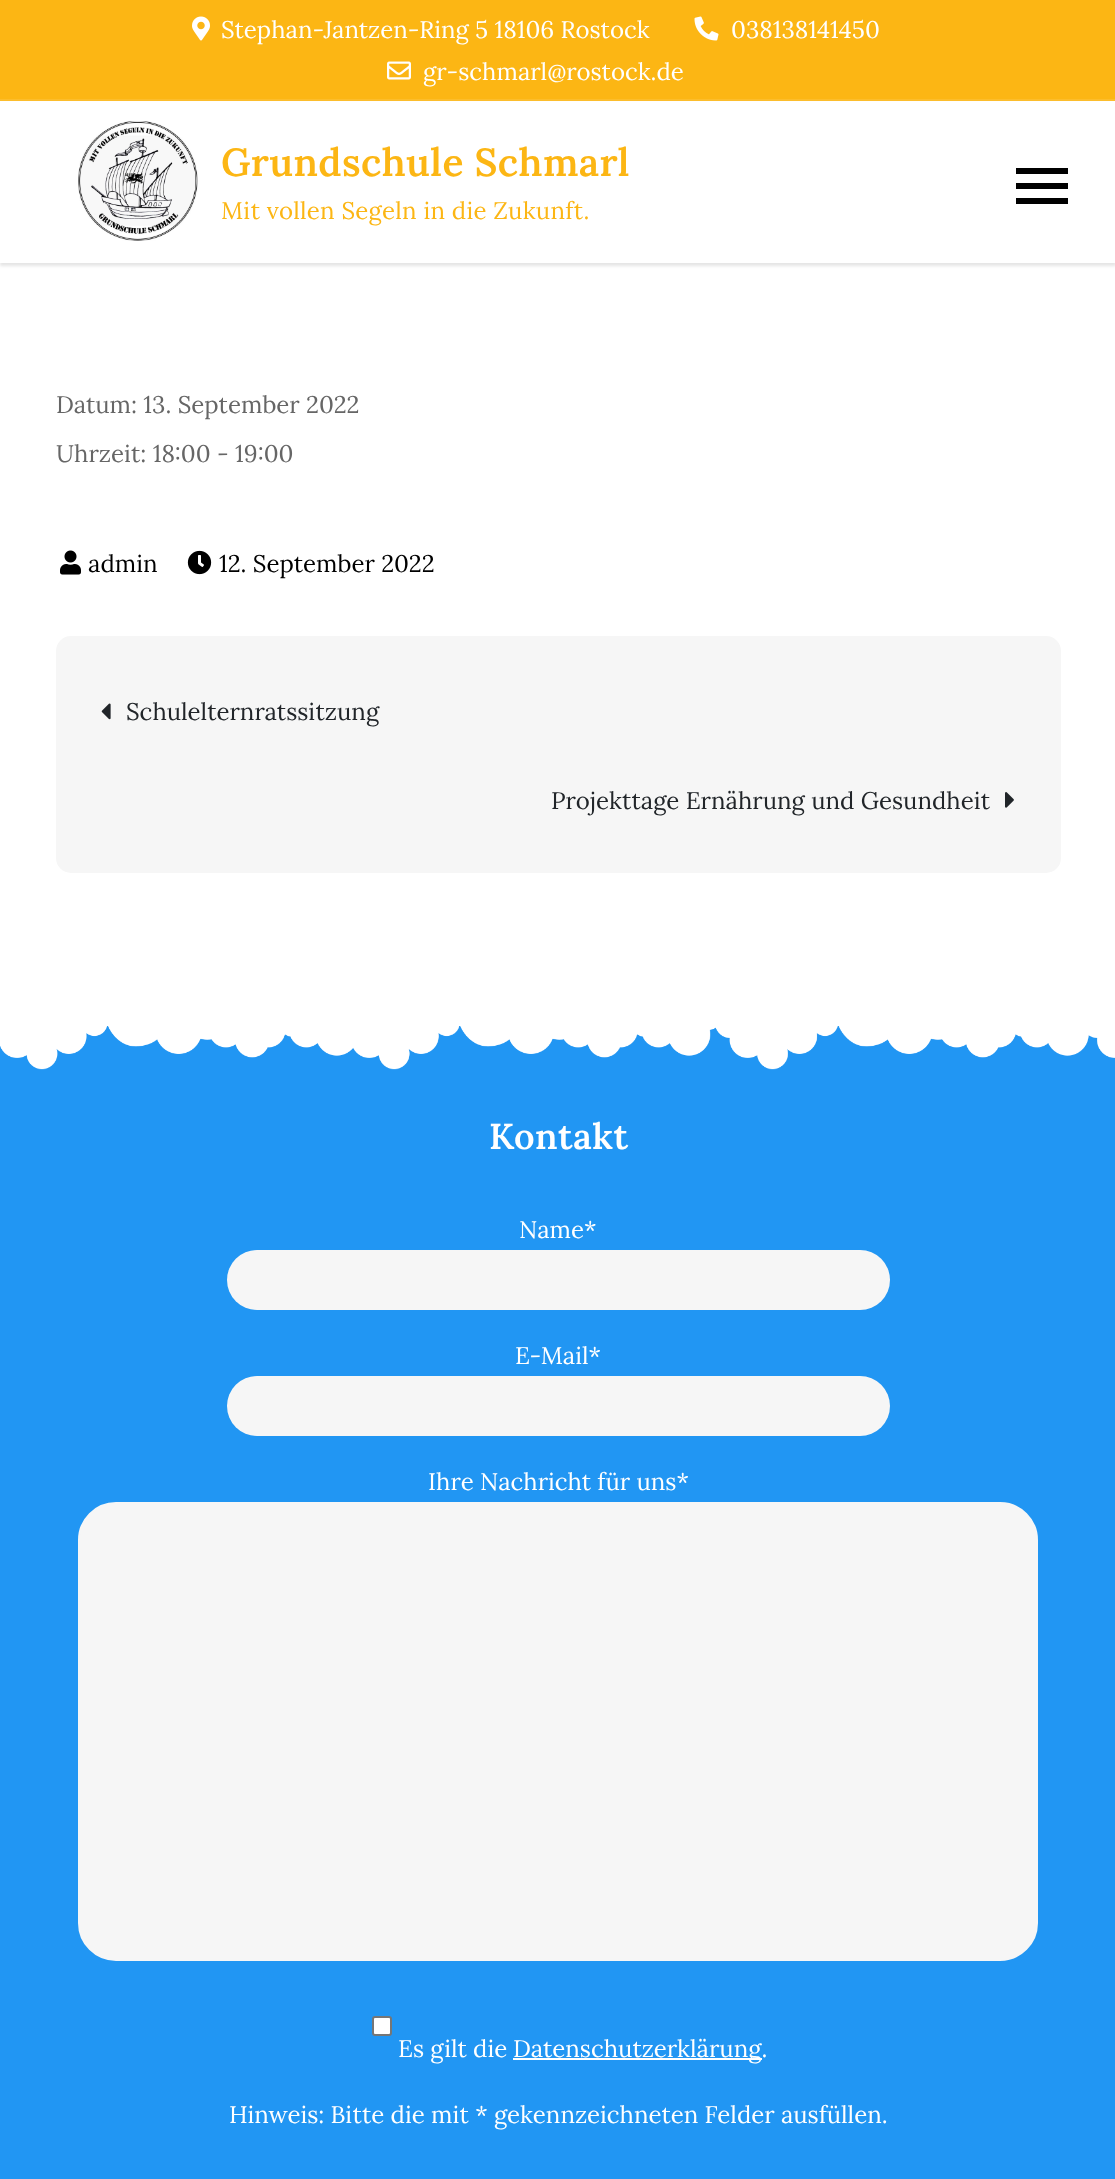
<?xml version="1.0" encoding="UTF-8"?>
<svg xmlns="http://www.w3.org/2000/svg" width="1115" height="2179">
    <defs>
        <filter id="blur1" x="-50%" y="-200%" width="200%" height="500%"><feGaussianBlur stdDeviation="1.5"/></filter>
    </defs>
    <rect width="100%" height="100%" fill="#FFFFFF"/>
    <rect x="0" y="0" width="1115" height="99" fill="#FCB614"/>
    <rect x="0" y="99" width="1115" height="2" fill="#FCBD2C"/>
    <image x="192" y="16" width="18" height="25" href="img_01.png"/>
    <text x="221" y="38" font-family="Lora" font-size="24" fill="#FFFFFF">Stephan-Jantzen-Ring 5 18106 Rostock</text>
    <image x="694" y="16" width="25" height="25" href="img_02.png"/>
    <text x="731" y="38" font-family="Lora" font-size="24" fill="#FFFFFF">038138141450</text>
    <image x="387" y="61" width="24" height="19" href="img_03.png"/>
    <text x="423" y="80" font-family="Lora" font-size="24" fill="#FFFFFF">gr-schmarl@rostock.de</text>
    <rect x="0" y="104" width="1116" height="162" fill="#000000" fill-opacity="0.1" filter="url(#blur1)"/>
    <rect x="0" y="102" width="1115" height="161" fill="#FFFFFF"/>
    <image x="78" y="121" width="120" height="120" href="img_04.png"/>
    <text x="221" y="176" font-family="Lora" font-size="39" font-weight="600" letter-spacing="0.4" fill="#FCB614">Grundschule Schmarl</text>
    <text x="221" y="219" font-family="Lora" font-size="24" letter-spacing="0.25" fill="#FCB614">Mit vollen Segeln in die Zukunft.</text>
    <rect x="1016" y="183" width="52" height="6" fill="#000000"/>
    <rect x="1016" y="168" width="52" height="6" fill="#000000"/>
    <rect x="1016" y="198" width="52" height="6" fill="#000000"/>
    <text x="56" y="413" font-family="Lora" font-size="24" fill="#666666">Datum: 13. September 2022</text>
    <text x="56" y="462" font-family="Lora" font-size="24" fill="#666666">Uhrzeit: 18:00 - 19:00</text>
    <image x="60" y="550" width="21" height="25" href="img_05.png"/>
    <text x="88" y="572" font-family="Lora" font-size="24" fill="#000000">admin</text>
    <image x="187" y="550" width="25" height="25" href="img_06.png"/>
    <text x="219" y="572" font-family="Lora" font-size="24" fill="#000000">12. September 2022</text>
    <rect x="56" y="636" width="1005" height="237" rx="15" fill="#F6F6F6"/>
    <image x="101" y="703" width="10" height="17" href="img_07.png"/>
    <text x="126" y="720" font-family="Lora" font-size="24" fill="#212529">Schulelternratssitzung</text>
    <text x="551" y="809" font-family="Lora" font-size="24" fill="#212529">Projekttage Ernährung und Gesundheit</text>
    <image x="1005" y="792" width="9" height="16" href="img_08.png"/>
    <rect x="0" y="1026" width="1115" height="1153" fill="#2196F3"/>
    <image x="0" y="993" width="1115" height="77" href="img_09.png"/>
    <text x="489" y="1149" font-family="Lora" font-size="36" font-weight="600" letter-spacing="0.5" fill="#FFFFFF">Kontakt</text>
    <text x="519" y="1238" font-family="Lora" font-size="24" fill="#FFFFFF">Name*</text>
    <rect x="227" y="1250" width="663" height="60" rx="30" fill="#F6F6F6"/>
    <text x="515" y="1364" font-family="Lora" font-size="24" fill="#FFFFFF">E-Mail*</text>
    <rect x="227" y="1376" width="663" height="60" rx="30" fill="#F6F6F6"/>
    <text x="428" y="1490" font-family="Lora" font-size="24" fill="#FFFFFF">Ihre Nachricht für uns*</text>
    <rect x="79" y="1503" width="958" height="457" rx="37" fill="#F6F6F6" stroke="#F6F6F6" stroke-width="2"/>
    <rect x="373" y="2017" width="18" height="18" rx="2" fill="#FFFFFF" stroke="#767676" stroke-width="2"/>
    <text x="398" y="2057" font-family="Lora" font-size="24" fill="#FFFFFF">Es gilt die</text>
    <rect x="513" y="2058" width="249" height="2" fill="#FFFFFF"/>
    <text x="513" y="2057" font-family="Lora" font-size="24" fill="#FFFFFF">Datenschutzerklärung.</text>
    <text x="229" y="2123" font-family="Lora" font-size="24" fill="#FFFFFF">Hinweis: Bitte die mit * gekennzeichneten Felder ausfüllen.</text>
</svg>
